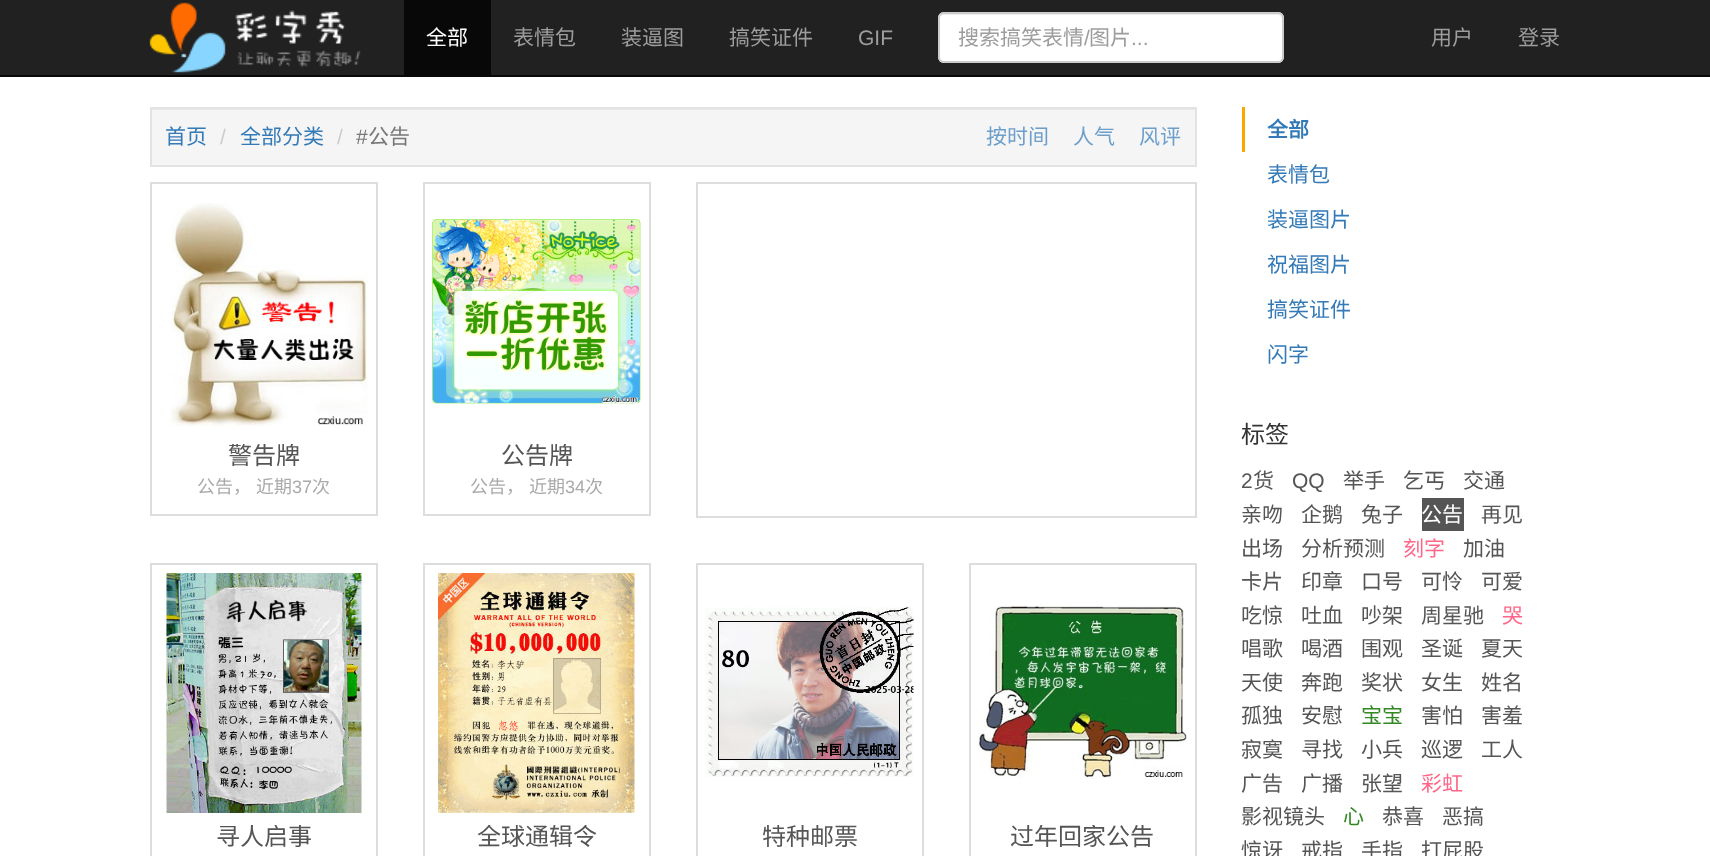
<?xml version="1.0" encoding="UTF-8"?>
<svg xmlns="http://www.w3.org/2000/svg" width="1710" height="856">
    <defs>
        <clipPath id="clip1"><rect x="161" y="444" width="207" height="27"/></clipPath>
        <clipPath id="clip2"><rect x="432" y="444" width="209" height="27"/></clipPath>
        <clipPath id="clip3"><rect x="161" y="825" width="207" height="27"/></clipPath>
        <clipPath id="clip4"><rect x="432" y="825" width="209" height="27"/></clipPath>
        <clipPath id="clip5"><rect x="705" y="825" width="209" height="27"/></clipPath>
        <clipPath id="clip6"><rect x="978" y="825" width="209" height="27"/></clipPath>
    </defs>
    <rect width="100%" height="100%" fill="#FFFFFF"/>
    <rect x="0" y="0" width="1710" height="75" fill="#212121"/>
    <rect x="0" y="75" width="1710" height="2" fill="#080808"/>
    <image x="149" y="2" width="212" height="71" href="img_01.png"/>
    <rect x="404" y="0" width="87" height="75" fill="#080808"/>
    <text x="426" y="45" font-family="Noto Sans CJK SC" font-size="21" fill="#FFFFFF">全部</text>
    <text x="513" y="45" font-family="Noto Sans CJK SC" font-size="21" fill="#9D9D9D">表情包</text>
    <text x="621" y="45" font-family="Noto Sans CJK SC" font-size="21" fill="#9D9D9D">装逼图</text>
    <text x="729" y="45" font-family="Noto Sans CJK SC" font-size="21" fill="#9D9D9D">搞笑证件</text>
    <text x="858" y="45" font-family="Liberation Sans" font-size="21" fill="#9D9D9D">GIF</text>
    <rect x="938" y="12" width="346" height="51" rx="6" fill="#FFFFFF"/>
    <path d="M 944 15 H 1278 C 1280 15 1282 17 1282 20 V 58 L 1281 61 C 1282 60 1283 58 1283 57 V 19 C 1283 16 1281 14 1278 14 H 944 C 941 14 939 16 939 19 V 20 C 939 17 941 15 944 15 Z" fill="#ECECEC"/>
    <rect x="939" y="13" width="344" height="49" rx="5" fill="none" stroke="#CCCCCC" stroke-width="2"/>
    <text x="958" y="45" font-family="Noto Sans CJK SC" font-size="21" fill="#9D9D9D">搜索搞笑表情</text>
    <text x="1084" y="45" font-family="Liberation Sans" font-size="21" fill="#9D9D9D">/</text>
    <text x="1089" y="45" font-family="Noto Sans CJK SC" font-size="21" fill="#9D9D9D">图片</text>
    <text x="1131" y="45" font-family="Liberation Sans" font-size="21" fill="#9D9D9D">...</text>
    <text x="1431" y="45" font-family="Noto Sans CJK SC" font-size="21" fill="#9D9D9D">用户</text>
    <text x="1518" y="45" font-family="Noto Sans CJK SC" font-size="21" fill="#9D9D9D">登录</text>
    <rect x="152" y="110" width="1043" height="55" fill="#F5F5F5"/>
    <rect x="152" y="109" width="1044" height="1" fill="#E9E9E9"/>
    <rect x="151" y="108" width="1045" height="58" fill="none" stroke="#E3E3E3" stroke-width="2"/>
    <text x="165" y="144" font-family="Noto Sans CJK SC" font-size="21" fill="#337AB7">首页</text>
    <text x="220" y="144" font-family="Liberation Sans" font-size="21" fill="#CCCCCC">/</text>
    <text x="240" y="144" font-family="Noto Sans CJK SC" font-size="21" fill="#337AB7">全部分类</text>
    <text x="337" y="144" font-family="Liberation Sans" font-size="21" fill="#CCCCCC">/</text>
    <text x="356" y="144" font-family="Liberation Sans" font-size="21" fill="#777777">#</text>
    <text x="368" y="144" font-family="Noto Sans CJK SC" font-size="21" fill="#777777">公告</text>
    <text x="986" y="144" font-family="Noto Sans CJK SC" font-size="21" fill="#6D9FCA">按时间</text>
    <text x="1073" y="144" font-family="Noto Sans CJK SC" font-size="21" fill="#6D9FCA">人气</text>
    <text x="1139" y="144" font-family="Noto Sans CJK SC" font-size="21" fill="#6D9FCA">风评</text>
    <rect x="151" y="183" width="226" height="332" fill="none" stroke="#DDDDDD" stroke-width="2"/>
    <image x="170" y="203" width="198" height="223" href="img_02.png"/>
    <g clip-path="url(#clip1)">
        <text x="228" y="464" font-family="Noto Sans CJK SC" font-size="24" fill="#555555">警告牌</text>
    </g>
    <text x="197" y="493" font-family="Noto Sans CJK SC" font-size="18" fill="#AAAAAA">公告，</text>
    <text x="256" y="493" font-family="Noto Sans CJK SC" font-size="18" fill="#AAAAAA">近期</text>
    <text x="292" y="493" font-family="Liberation Sans" font-size="18" fill="#AAAAAA">37</text>
    <text x="312" y="493" font-family="Noto Sans CJK SC" font-size="18" fill="#AAAAAA">次</text>
    <rect x="424" y="183" width="226" height="332" fill="none" stroke="#DDDDDD" stroke-width="2"/>
    <image x="432" y="219" width="209" height="185" href="img_03.png"/>
    <g clip-path="url(#clip2)">
        <text x="501" y="464" font-family="Noto Sans CJK SC" font-size="24" fill="#555555">公告牌</text>
    </g>
    <text x="470" y="493" font-family="Noto Sans CJK SC" font-size="18" fill="#AAAAAA">公告，</text>
    <text x="529" y="493" font-family="Noto Sans CJK SC" font-size="18" fill="#AAAAAA">近期</text>
    <text x="565" y="493" font-family="Liberation Sans" font-size="18" fill="#AAAAAA">34</text>
    <text x="585" y="493" font-family="Noto Sans CJK SC" font-size="18" fill="#AAAAAA">次</text>
    <rect x="697" y="183" width="499" height="334" fill="none" stroke="#DDDDDD" stroke-width="2"/>
    <rect x="151" y="564" width="226" height="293" fill="none" stroke="#DDDDDD" stroke-width="2"/>
    <image x="166" y="573" width="196" height="240" href="img_04.png"/>
    <g clip-path="url(#clip3)">
        <text x="216" y="845" font-family="Noto Sans CJK SC" font-size="24" fill="#555555">寻人启事</text>
    </g>
    <rect x="424" y="564" width="226" height="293" fill="none" stroke="#DDDDDD" stroke-width="2"/>
    <image x="438" y="573" width="197" height="240" href="img_05.png"/>
    <g clip-path="url(#clip4)">
        <text x="477" y="845" font-family="Noto Sans CJK SC" font-size="24" fill="#555555">全球通辑令</text>
    </g>
    <rect x="697" y="564" width="226" height="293" fill="none" stroke="#DDDDDD" stroke-width="2"/>
    <image x="705" y="607" width="209" height="170" href="img_06.png"/>
    <g clip-path="url(#clip5)">
        <text x="762" y="845" font-family="Noto Sans CJK SC" font-size="24" fill="#555555">特种邮票</text>
    </g>
    <rect x="970" y="564" width="226" height="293" fill="none" stroke="#DDDDDD" stroke-width="2"/>
    <image x="978" y="606" width="209" height="173" href="img_07.png"/>
    <g clip-path="url(#clip6)">
        <text x="1010" y="845" font-family="Noto Sans CJK SC" font-size="24" fill="#555555">过年回家公告</text>
    </g>
    <rect x="1242" y="107" width="3" height="45" fill="#FFA500"/>
    <text x="1267" y="137" font-family="Noto Sans CJK SC" font-size="21" font-weight="700" fill="#337AB7">全部</text>
    <text x="1267" y="182" font-family="Noto Sans CJK SC" font-size="21" fill="#337AB7">表情包</text>
    <text x="1267" y="227" font-family="Noto Sans CJK SC" font-size="21" fill="#337AB7">装逼图片</text>
    <text x="1267" y="272" font-family="Noto Sans CJK SC" font-size="21" fill="#337AB7">祝福图片</text>
    <text x="1267" y="317" font-family="Noto Sans CJK SC" font-size="21" fill="#337AB7">搞笑证件</text>
    <text x="1267" y="362" font-family="Noto Sans CJK SC" font-size="21" fill="#337AB7">闪字</text>
    <text x="1241" y="443" font-family="Noto Sans CJK SC" font-size="24" fill="#333333">标签</text>
    <text x="1241" y="488" font-family="Liberation Sans" font-size="21" fill="#555555">2</text>
    <text x="1253" y="488" font-family="Noto Sans CJK SC" font-size="21" fill="#555555">货</text>
    <text x="1292" y="488" font-family="Liberation Sans" font-size="21" fill="#555555">QQ</text>
    <text x="1343" y="488" font-family="Noto Sans CJK SC" font-size="21" fill="#555555">举手</text>
    <text x="1403" y="488" font-family="Noto Sans CJK SC" font-size="21" fill="#555555">乞丐</text>
    <text x="1463" y="488" font-family="Noto Sans CJK SC" font-size="21" fill="#555555">交通</text>
    <text x="1241" y="522" font-family="Noto Sans CJK SC" font-size="21" fill="#555555">亲吻</text>
    <text x="1301" y="522" font-family="Noto Sans CJK SC" font-size="21" fill="#555555">企鹅</text>
    <text x="1361" y="522" font-family="Noto Sans CJK SC" font-size="21" fill="#555555">兔子</text>
    <rect x="1422" y="498" width="42" height="33" fill="#555555"/>
    <text x="1421" y="522" font-family="Noto Sans CJK SC" font-size="21" fill="#FFFFFF">公告</text>
    <text x="1481" y="522" font-family="Noto Sans CJK SC" font-size="21" fill="#555555">再见</text>
    <text x="1241" y="556" font-family="Noto Sans CJK SC" font-size="21" fill="#555555">出场</text>
    <text x="1301" y="556" font-family="Noto Sans CJK SC" font-size="21" fill="#555555">分析预测</text>
    <text x="1403" y="556" font-family="Noto Sans CJK SC" font-size="21" fill="#FF6688">刻字</text>
    <text x="1463" y="556" font-family="Noto Sans CJK SC" font-size="21" fill="#555555">加油</text>
    <text x="1241" y="589" font-family="Noto Sans CJK SC" font-size="21" fill="#555555">卡片</text>
    <text x="1301" y="589" font-family="Noto Sans CJK SC" font-size="21" fill="#555555">印章</text>
    <text x="1361" y="589" font-family="Noto Sans CJK SC" font-size="21" fill="#555555">口号</text>
    <text x="1421" y="589" font-family="Noto Sans CJK SC" font-size="21" fill="#555555">可怜</text>
    <text x="1481" y="589" font-family="Noto Sans CJK SC" font-size="21" fill="#555555">可爱</text>
    <text x="1241" y="623" font-family="Noto Sans CJK SC" font-size="21" fill="#555555">吃惊</text>
    <text x="1301" y="623" font-family="Noto Sans CJK SC" font-size="21" fill="#555555">吐血</text>
    <text x="1361" y="623" font-family="Noto Sans CJK SC" font-size="21" fill="#555555">吵架</text>
    <text x="1421" y="623" font-family="Noto Sans CJK SC" font-size="21" fill="#555555">周星驰</text>
    <text x="1502" y="623" font-family="Noto Sans CJK SC" font-size="21" fill="#FF6688">哭</text>
    <text x="1241" y="656" font-family="Noto Sans CJK SC" font-size="21" fill="#555555">唱歌</text>
    <text x="1301" y="656" font-family="Noto Sans CJK SC" font-size="21" fill="#555555">喝酒</text>
    <text x="1361" y="656" font-family="Noto Sans CJK SC" font-size="21" fill="#555555">围观</text>
    <text x="1421" y="656" font-family="Noto Sans CJK SC" font-size="21" fill="#555555">圣诞</text>
    <text x="1481" y="656" font-family="Noto Sans CJK SC" font-size="21" fill="#555555">夏天</text>
    <text x="1241" y="690" font-family="Noto Sans CJK SC" font-size="21" fill="#555555">天使</text>
    <text x="1301" y="690" font-family="Noto Sans CJK SC" font-size="21" fill="#555555">奔跑</text>
    <text x="1361" y="690" font-family="Noto Sans CJK SC" font-size="21" fill="#555555">奖状</text>
    <text x="1421" y="690" font-family="Noto Sans CJK SC" font-size="21" fill="#555555">女生</text>
    <text x="1481" y="690" font-family="Noto Sans CJK SC" font-size="21" fill="#555555">姓名</text>
    <text x="1241" y="723" font-family="Noto Sans CJK SC" font-size="21" fill="#555555">孤独</text>
    <text x="1301" y="723" font-family="Noto Sans CJK SC" font-size="21" fill="#555555">安慰</text>
    <text x="1361" y="723" font-family="Noto Sans CJK SC" font-size="21" fill="#338822">宝宝</text>
    <text x="1421" y="723" font-family="Noto Sans CJK SC" font-size="21" fill="#555555">害怕</text>
    <text x="1481" y="723" font-family="Noto Sans CJK SC" font-size="21" fill="#555555">害羞</text>
    <text x="1241" y="757" font-family="Noto Sans CJK SC" font-size="21" fill="#555555">寂寞</text>
    <text x="1301" y="757" font-family="Noto Sans CJK SC" font-size="21" fill="#555555">寻找</text>
    <text x="1361" y="757" font-family="Noto Sans CJK SC" font-size="21" fill="#555555">小兵</text>
    <text x="1421" y="757" font-family="Noto Sans CJK SC" font-size="21" fill="#555555">巡逻</text>
    <text x="1481" y="757" font-family="Noto Sans CJK SC" font-size="21" fill="#555555">工人</text>
    <text x="1241" y="791" font-family="Noto Sans CJK SC" font-size="21" fill="#555555">广告</text>
    <text x="1301" y="791" font-family="Noto Sans CJK SC" font-size="21" fill="#555555">广播</text>
    <text x="1361" y="791" font-family="Noto Sans CJK SC" font-size="21" fill="#555555">张望</text>
    <text x="1421" y="791" font-family="Noto Sans CJK SC" font-size="21" fill="#FF6688">彩虹</text>
    <text x="1241" y="824" font-family="Noto Sans CJK SC" font-size="21" fill="#555555">影视镜头</text>
    <text x="1343" y="824" font-family="Noto Sans CJK SC" font-size="21" fill="#338822">心</text>
    <text x="1382" y="824" font-family="Noto Sans CJK SC" font-size="21" fill="#555555">恭喜</text>
    <text x="1442" y="824" font-family="Noto Sans CJK SC" font-size="21" fill="#555555">恶搞</text>
    <text x="1241" y="858" font-family="Noto Sans CJK SC" font-size="21" fill="#555555">惊讶</text>
    <text x="1301" y="858" font-family="Noto Sans CJK SC" font-size="21" fill="#555555">戒指</text>
    <text x="1361" y="858" font-family="Noto Sans CJK SC" font-size="21" fill="#555555">手指</text>
    <text x="1421" y="858" font-family="Noto Sans CJK SC" font-size="21" fill="#555555">打屁股</text>
</svg>
